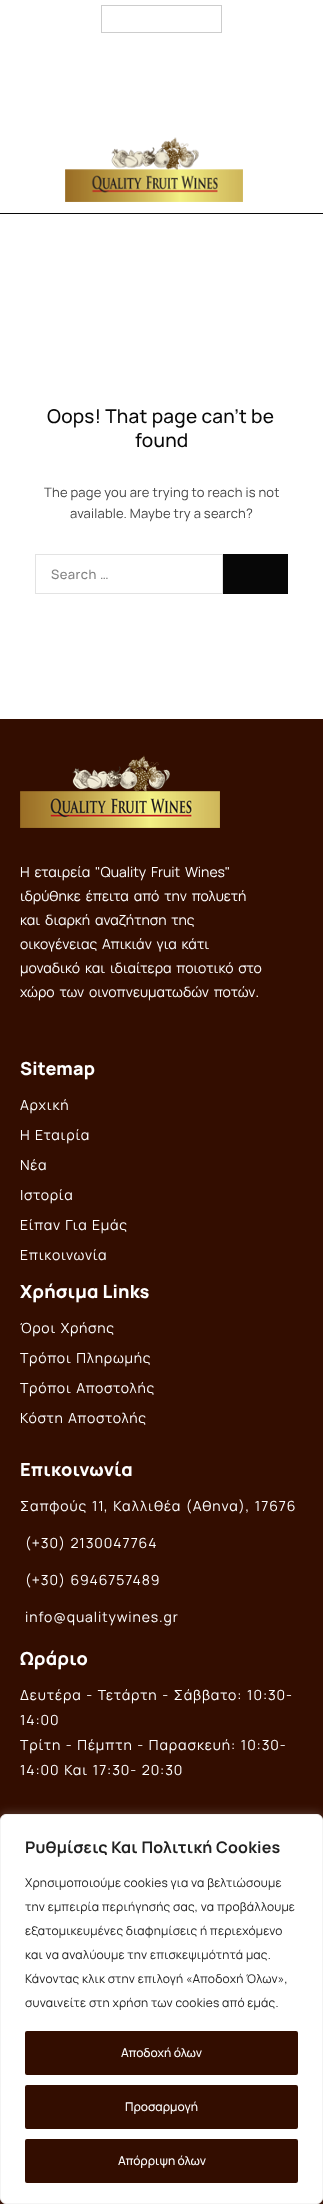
<?xml version="1.0" encoding="UTF-8"?>
<svg xmlns="http://www.w3.org/2000/svg" width="323" height="2204">
    <defs>
        <filter id="blur1" x="-50%" y="-200%" width="200%" height="500%"><feGaussianBlur stdDeviation="5"/></filter>
    </defs>
    <rect width="100%" height="100%" fill="#FFFFFF"/>
    <rect x="101.5" y="5.5" width="120" height="27" fill="none" stroke="#CDCDCD"/>
    <rect x="0" y="213" width="323" height="1" fill="#070707"/>
    <image x="65" y="137" width="178" height="65" href="img_01.png"/>
    <text x="47" y="423" font-family="Manrope" font-size="19" font-weight="500" letter-spacing="0.25" fill="#070707">Oops! That page can’t be</text>
    <text x="135" y="447" font-family="Manrope" font-size="19" font-weight="500" letter-spacing="0.25" fill="#070707">found</text>
    <text x="44" y="497" font-family="Manrope" font-size="13" letter-spacing="0.2" fill="#454545">The page you are trying to reach is not</text>
    <text x="70" y="518" font-family="Manrope" font-size="13" letter-spacing="0.2" fill="#454545">available. Maybe try a search?</text>
    <rect x="35.5" y="554.5" width="187" height="39" fill="none" stroke="#E3E3E3"/>
    <text x="51" y="579" font-family="Manrope" font-size="13" font-weight="500" letter-spacing="0.5" fill="#838383">Search …</text>
    <rect x="223" y="554" width="65" height="40" fill="#070707"/>
    <rect x="0" y="719" width="323" height="1101" fill="#330D00"/>
    <image x="20" y="755" width="200" height="73" href="img_02.png"/>
    <text font-family="Manrope" font-size="14" fill="#FFFFFF">
        <tspan x="20" y="877" word-spacing="2">H εταιρεία "Quality Fruit Wines"</tspan>
        <tspan x="20" y="901" word-spacing="2">ιδρύθηκε έπειτα από την πολυετή</tspan>
        <tspan x="20" y="925" word-spacing="2">και διαρκή αναζήτηση της</tspan>
        <tspan x="20" y="949" word-spacing="2">οικογένειας Απικιάν για κάτι</tspan>
        <tspan x="20" y="973" word-spacing="2">μοναδικό και ιδιαίτερα ποιοτικό στο</tspan>
        <tspan x="20" y="997" word-spacing="2">χώρο των οινοπνευματωδών ποτών.</tspan>
    </text>
    <text x="20" y="1075" font-family="Manrope" font-size="18" font-weight="800" letter-spacing="0.2" fill="#FFFFFF">Sitemap</text>
    <text x="20" y="1110" font-family="Manrope" font-size="14" letter-spacing="0.75" fill="#FFFFFF">Αρχική</text>
    <text x="20" y="1140" word-spacing="1" font-family="Manrope" font-size="14" letter-spacing="0.75" fill="#FFFFFF">Η Εταιρία</text>
    <text x="20" y="1170" font-family="Manrope" font-size="14" letter-spacing="0.75" fill="#FFFFFF">Νέα</text>
    <text x="20" y="1200" font-family="Manrope" font-size="14" letter-spacing="0.75" fill="#FFFFFF">Ιστορία</text>
    <text x="20" y="1230" word-spacing="1" font-family="Manrope" font-size="14" letter-spacing="0.75" fill="#FFFFFF">Είπαν Για Εμάς</text>
    <text x="20" y="1260" font-family="Manrope" font-size="14" letter-spacing="0.75" fill="#FFFFFF">Επικοινωνία</text>
    <text x="20" y="1298" font-family="Manrope" font-size="18" font-weight="800" letter-spacing="0.2" fill="#FFFFFF">Χρήσιμα Links</text>
    <text x="20" y="1333" word-spacing="1" font-family="Manrope" font-size="14" letter-spacing="0.75" fill="#FFFFFF">Όροι Χρήσης</text>
    <text x="20" y="1363" word-spacing="1" font-family="Manrope" font-size="14" letter-spacing="0.75" fill="#FFFFFF">Τρόποι Πληρωμής</text>
    <text x="20" y="1393" word-spacing="1" font-family="Manrope" font-size="14" letter-spacing="0.75" fill="#FFFFFF">Τρόποι Αποστολής</text>
    <text x="20" y="1423" word-spacing="1" font-family="Manrope" font-size="14" letter-spacing="0.75" fill="#FFFFFF">Κόστη Αποστολής</text>
    <text x="20" y="1476" font-family="Manrope" font-size="18" font-weight="800" letter-spacing="0.2" fill="#FFFFFF">Επικοινωνία</text>
    <text x="20" y="1511" word-spacing="1" font-family="Manrope" font-size="14" letter-spacing="0.9" fill="#FFFFFF">Σαπφούς 11, Καλλιθέα (Αθηνα), 17676</text>
    <text x="25" y="1548" word-spacing="1" font-family="Manrope" font-size="14" letter-spacing="0.9" fill="#FFFFFF">(+30) 2130047764</text>
    <text x="25" y="1585" word-spacing="1" font-family="Manrope" font-size="14" letter-spacing="0.9" fill="#FFFFFF">(+30) 6946757489</text>
    <text x="25" y="1622" font-family="Manrope" font-size="14" letter-spacing="0.9" fill="#FFFFFF">info@qualitywines.gr</text>
    <text x="20" y="1665" font-family="Manrope" font-size="18" font-weight="800" letter-spacing="0.2" fill="#FFFFFF">Ωράριο</text>
    <text font-family="Manrope" font-size="14" letter-spacing="0.9" fill="#FFFFFF">
        <tspan x="20" y="1700" word-spacing="1">Δευτέρα - Τετάρτη - Σάββατο: 10:30-</tspan>
        <tspan x="20" y="1725">14:00</tspan>
        <tspan x="20" y="1750" word-spacing="1">Τρίτη - Πέμπτη - Παρασκευή: 10:30-</tspan>
        <tspan x="20" y="1775" word-spacing="1">14:00 Και 17:30- 20:30</tspan>
    </text>
    <rect x="0" y="2198" width="323" height="6" fill="#330D00"/>
    <rect x="0" y="1813" width="323" height="390" rx="6" fill="#ACABAB" fill-opacity="0.3" filter="url(#blur1)"/>
    <rect x="0.5" y="1814.5" width="322" height="389" rx="5.5" fill="#FFFFFF" stroke="#F4F4F4"/>
    <text x="25" y="1853" font-family="Manrope" font-size="16" font-weight="700" letter-spacing="0.2" fill="#212121">Ρυθμίσεις Και Πολιτική Cookies</text>
    <text x="25" y="1887" font-family="Manrope" font-size="12" letter-spacing="0.2" fill="#212121">Χρησιμοποιούμε cookies για να βελτιώσουμε</text>
    <text x="25" y="1911" font-family="Manrope" font-size="12" letter-spacing="0.2" fill="#212121">την εμπειρία περιήγησής σας, να προβάλλουμε</text>
    <text x="25" y="1935" font-family="Manrope" font-size="12" letter-spacing="0.2" fill="#212121">εξατομικευμένες διαφημίσεις ή περιεχόμενο</text>
    <text x="25" y="1959" font-family="Manrope" font-size="12" letter-spacing="0.2" fill="#212121">και να αναλύουμε την επισκεψιμότητά μας.</text>
    <text x="25" y="1983" font-family="Manrope" font-size="12" letter-spacing="0.2" fill="#212121">Κάνοντας κλικ στην επιλογή «Αποδοχή Όλων»,</text>
    <text x="25" y="2007" font-family="Manrope" font-size="12" letter-spacing="0.2" fill="#212121">συναινείτε στη χρήση των cookies από εμάς.</text>
    <rect x="26" y="2032" width="271" height="42" rx="1" fill="#330D00" stroke="#330D00" stroke-width="2"/>
    <text x="121" y="2057" font-family="Manrope" font-size="12" font-weight="500" fill="#FFFFFF">Αποδοχή όλων</text>
    <rect x="26" y="2086" width="271" height="42" rx="1" fill="#330D00" stroke="#330D00" stroke-width="2"/>
    <text x="125" y="2111" font-family="Manrope" font-size="12" font-weight="500" fill="#FFFFFF">Προσαρμογή</text>
    <rect x="26" y="2140" width="271" height="42" rx="1" fill="#330D00" stroke="#330D00" stroke-width="2"/>
    <text x="118" y="2165" font-family="Manrope" font-size="12" font-weight="500" fill="#FFFFFF">Απόρριψη όλων</text>
</svg>
